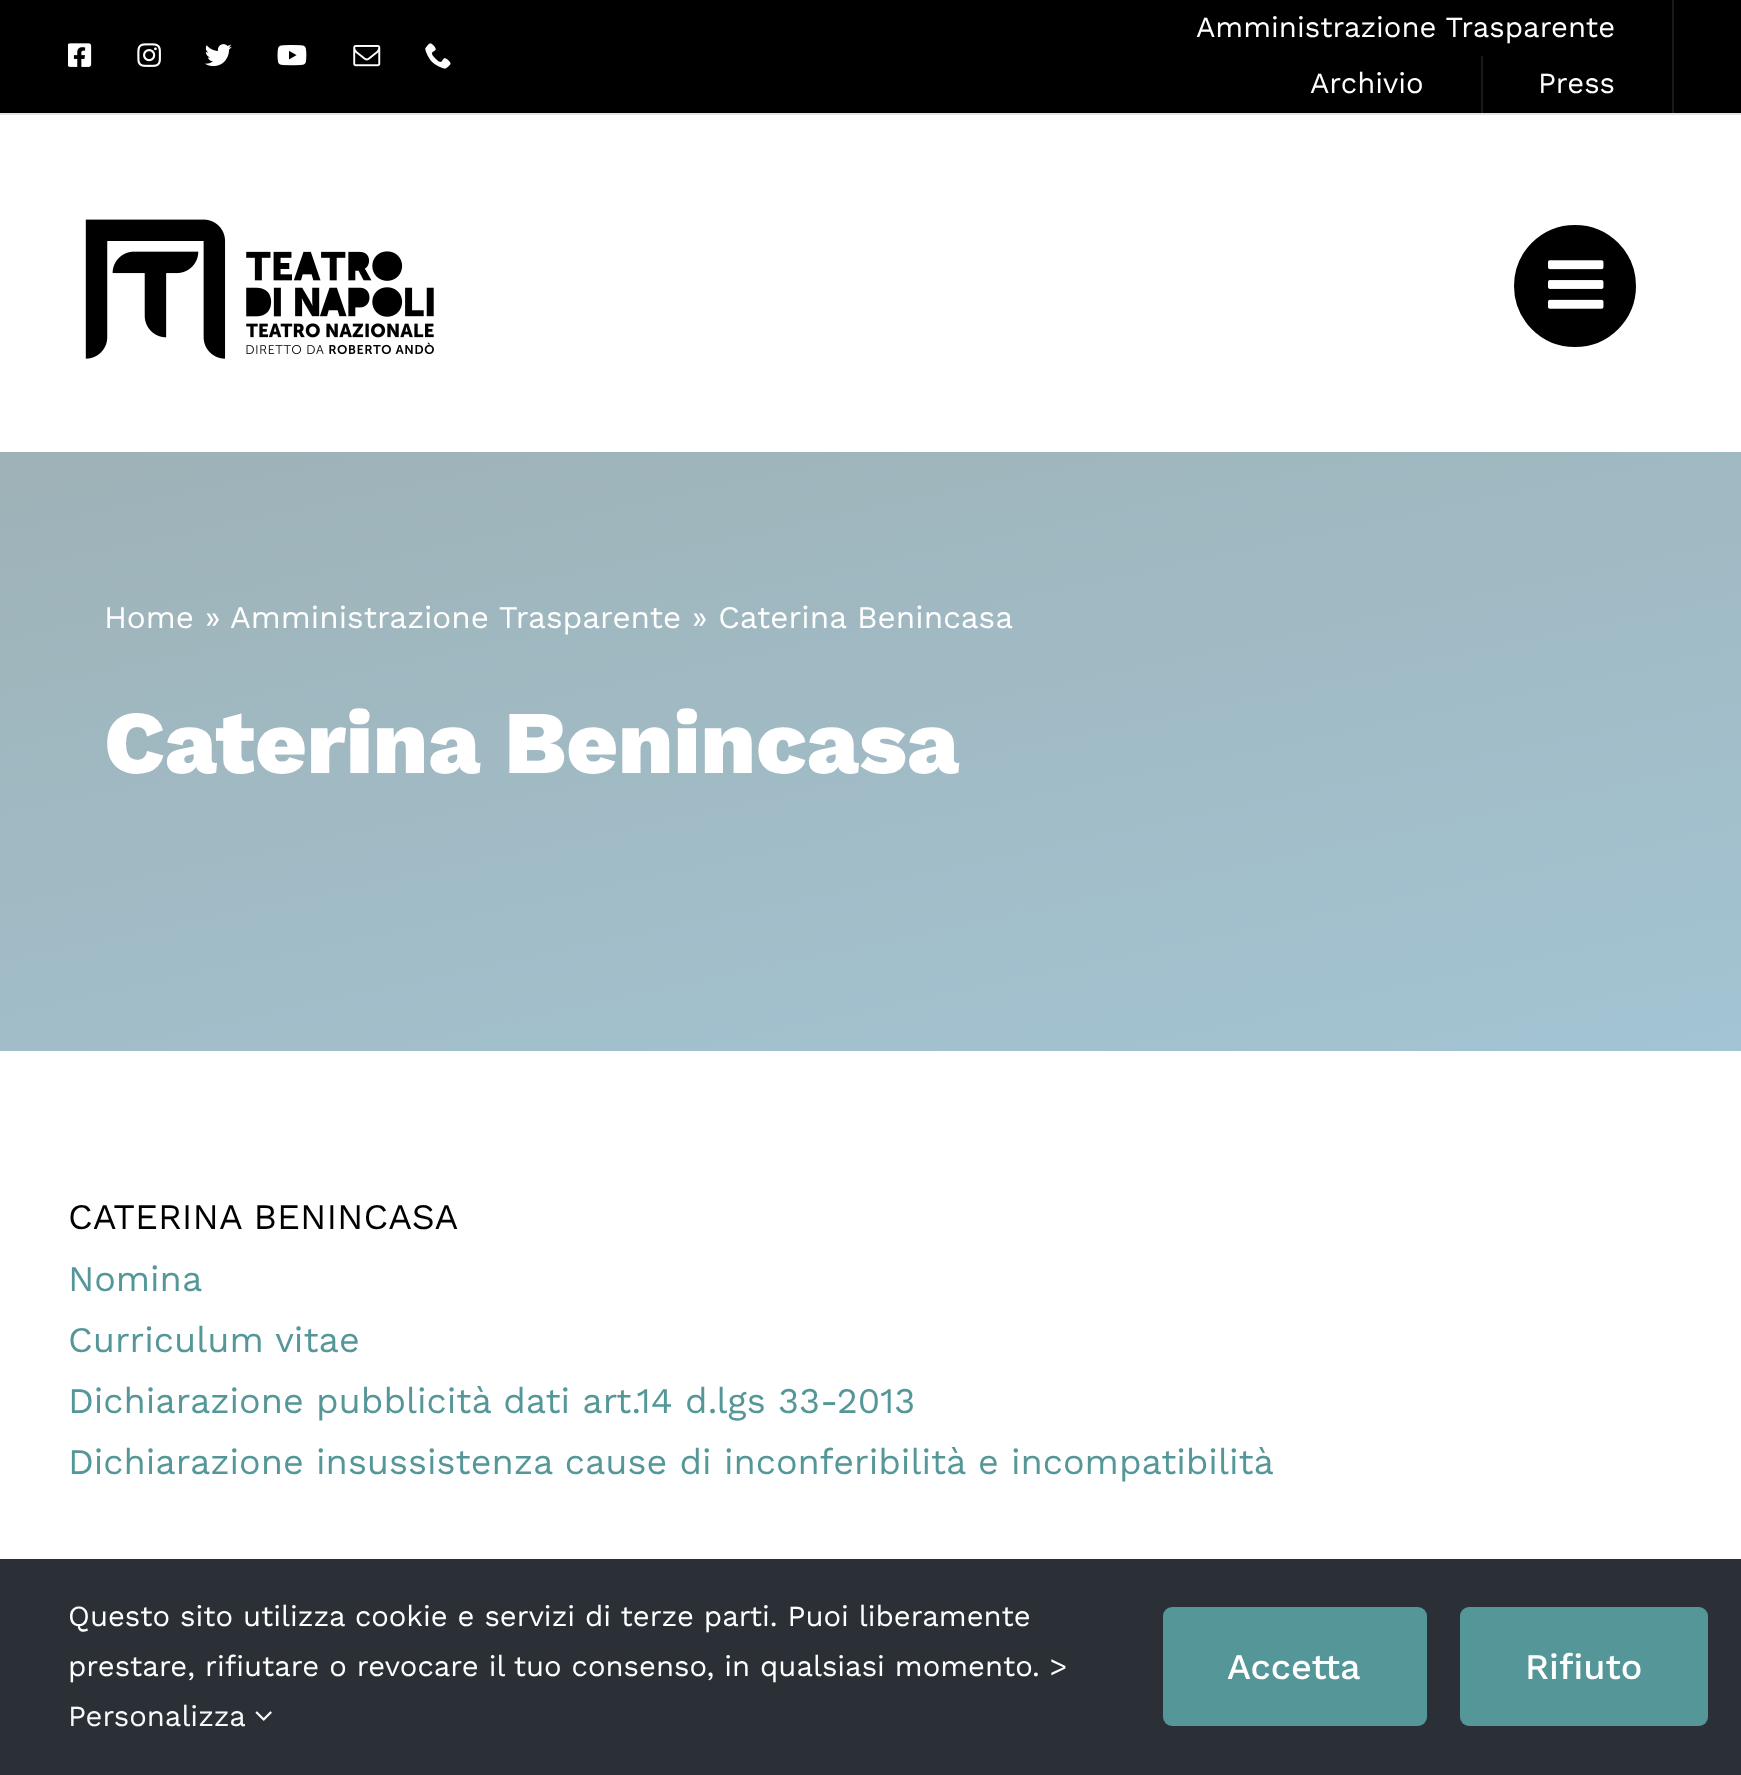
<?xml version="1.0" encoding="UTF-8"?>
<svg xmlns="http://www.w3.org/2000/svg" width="1741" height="1775">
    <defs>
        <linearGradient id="g1" gradientUnits="userSpaceOnUse" x1="772" y1="288" x2="969" y2="1215"><stop offset="0" stop-color="#9EB2B7"/><stop offset="1" stop-color="#A3C4D3"/></linearGradient>
    </defs>
    <rect width="100%" height="100%" fill="#FFFFFF"/>
    <rect x="0" y="0" width="1741" height="113" fill="#000000"/>
    <rect x="0" y="113" width="1741" height="2" fill="#E2E2E2"/>
    <image x="68" y="43" width="24" height="24" href="img_01.png"/>
    <image x="137" y="43" width="24" height="24" href="img_02.png"/>
    <image x="205" y="44" width="27" height="23" href="img_03.png"/>
    <image x="277" y="45" width="30" height="21" href="img_04.png"/>
    <image x="353" y="45" width="28" height="22" href="img_05.png"/>
    <image x="425" y="43" width="26" height="26" href="img_06.png"/>
    <text x="1196" y="37" font-family="Work Sans" font-size="29.25" fill="#FFFFFF">Amministrazione Trasparente</text>
    <rect x="1672" y="0" width="2" height="113" fill="#1A1A1A"/>
    <text x="1310" y="93" font-family="Work Sans" font-size="29.25" fill="#FFFFFF">Archivio</text>
    <rect x="1481" y="56" width="2" height="57" fill="#1A1A1A"/>
    <text x="1538" y="93" font-family="Work Sans" font-size="29.25" fill="#FFFFFF">Press</text>
    <image x="85" y="219" width="349" height="140" href="img_07.png"/>
    <circle cx="1575" cy="286" r="62" fill="#000000" stroke="#FFFFFF" stroke-width="2"/>
    <image x="1548" y="260" width="56" height="49" href="img_08.png"/>
    <rect x="0" y="452" width="1741" height="599" fill="url(#g1)"/>
    <text x="104" y="628" font-family="Work Sans" font-size="31.5" fill="#FFFFFF">Home</text>
    <text x="205" y="628" font-family="Work Sans" font-size="31.5" fill="#FFFFFF">»</text>
    <text x="230" y="628" font-family="Work Sans" font-size="31.5" fill="#FFFFFF">Amministrazione Trasparente » Caterina Benincasa</text>
    <text x="104" y="773" font-family="Work Sans" font-size="89.5" font-weight="800" fill="#FFFFFF">Caterina Benincasa</text>
    <text x="68" y="1229" font-family="Work Sans" font-size="36" fill="#000000">CATERINA BENINCASA</text>
    <text font-family="Work Sans" font-size="36" fill="#559798">
        <tspan x="68" y="1291">Nomina</tspan>
        <tspan x="68" y="1352">Curriculum vitae</tspan>
        <tspan x="68" y="1413">Dichiarazione pubblicità dati art.14 d.lgs 33-2013</tspan>
        <tspan x="68" y="1474">Dichiarazione insussistenza cause di inconferibilità e incompatibilità</tspan>
    </text>
    <rect x="0" y="1559" width="1741" height="216" fill="#2A3035"/>
    <text font-family="Work Sans" font-size="29.25" fill="#FFFFFF">
        <tspan x="68" y="1626">Questo sito utilizza cookie e servizi di terze parti. Puoi liberamente</tspan>
        <tspan x="68" y="1676">prestare, rifiutare o revocare il tuo consenso, in qualsiasi momento. &gt;</tspan>
    </text>
    <text x="68" y="1726" font-family="Work Sans" font-size="29.25" fill="#F8F9FA">Personalizza</text>
    <image x="255" y="1711" width="17" height="10" href="img_09.png"/>
    <rect x="1163" y="1607" width="264" height="119" rx="9" fill="#559798"/>
    <text x="1227" y="1679" font-family="Work Sans" font-size="36" font-weight="500" fill="#FFFFFF">Accetta</text>
    <rect x="1460" y="1607" width="248" height="119" rx="9" fill="#559798"/>
    <text x="1525" y="1679" font-family="Work Sans" font-size="36" font-weight="500" fill="#FFFFFF">Rifiuto</text>
</svg>
